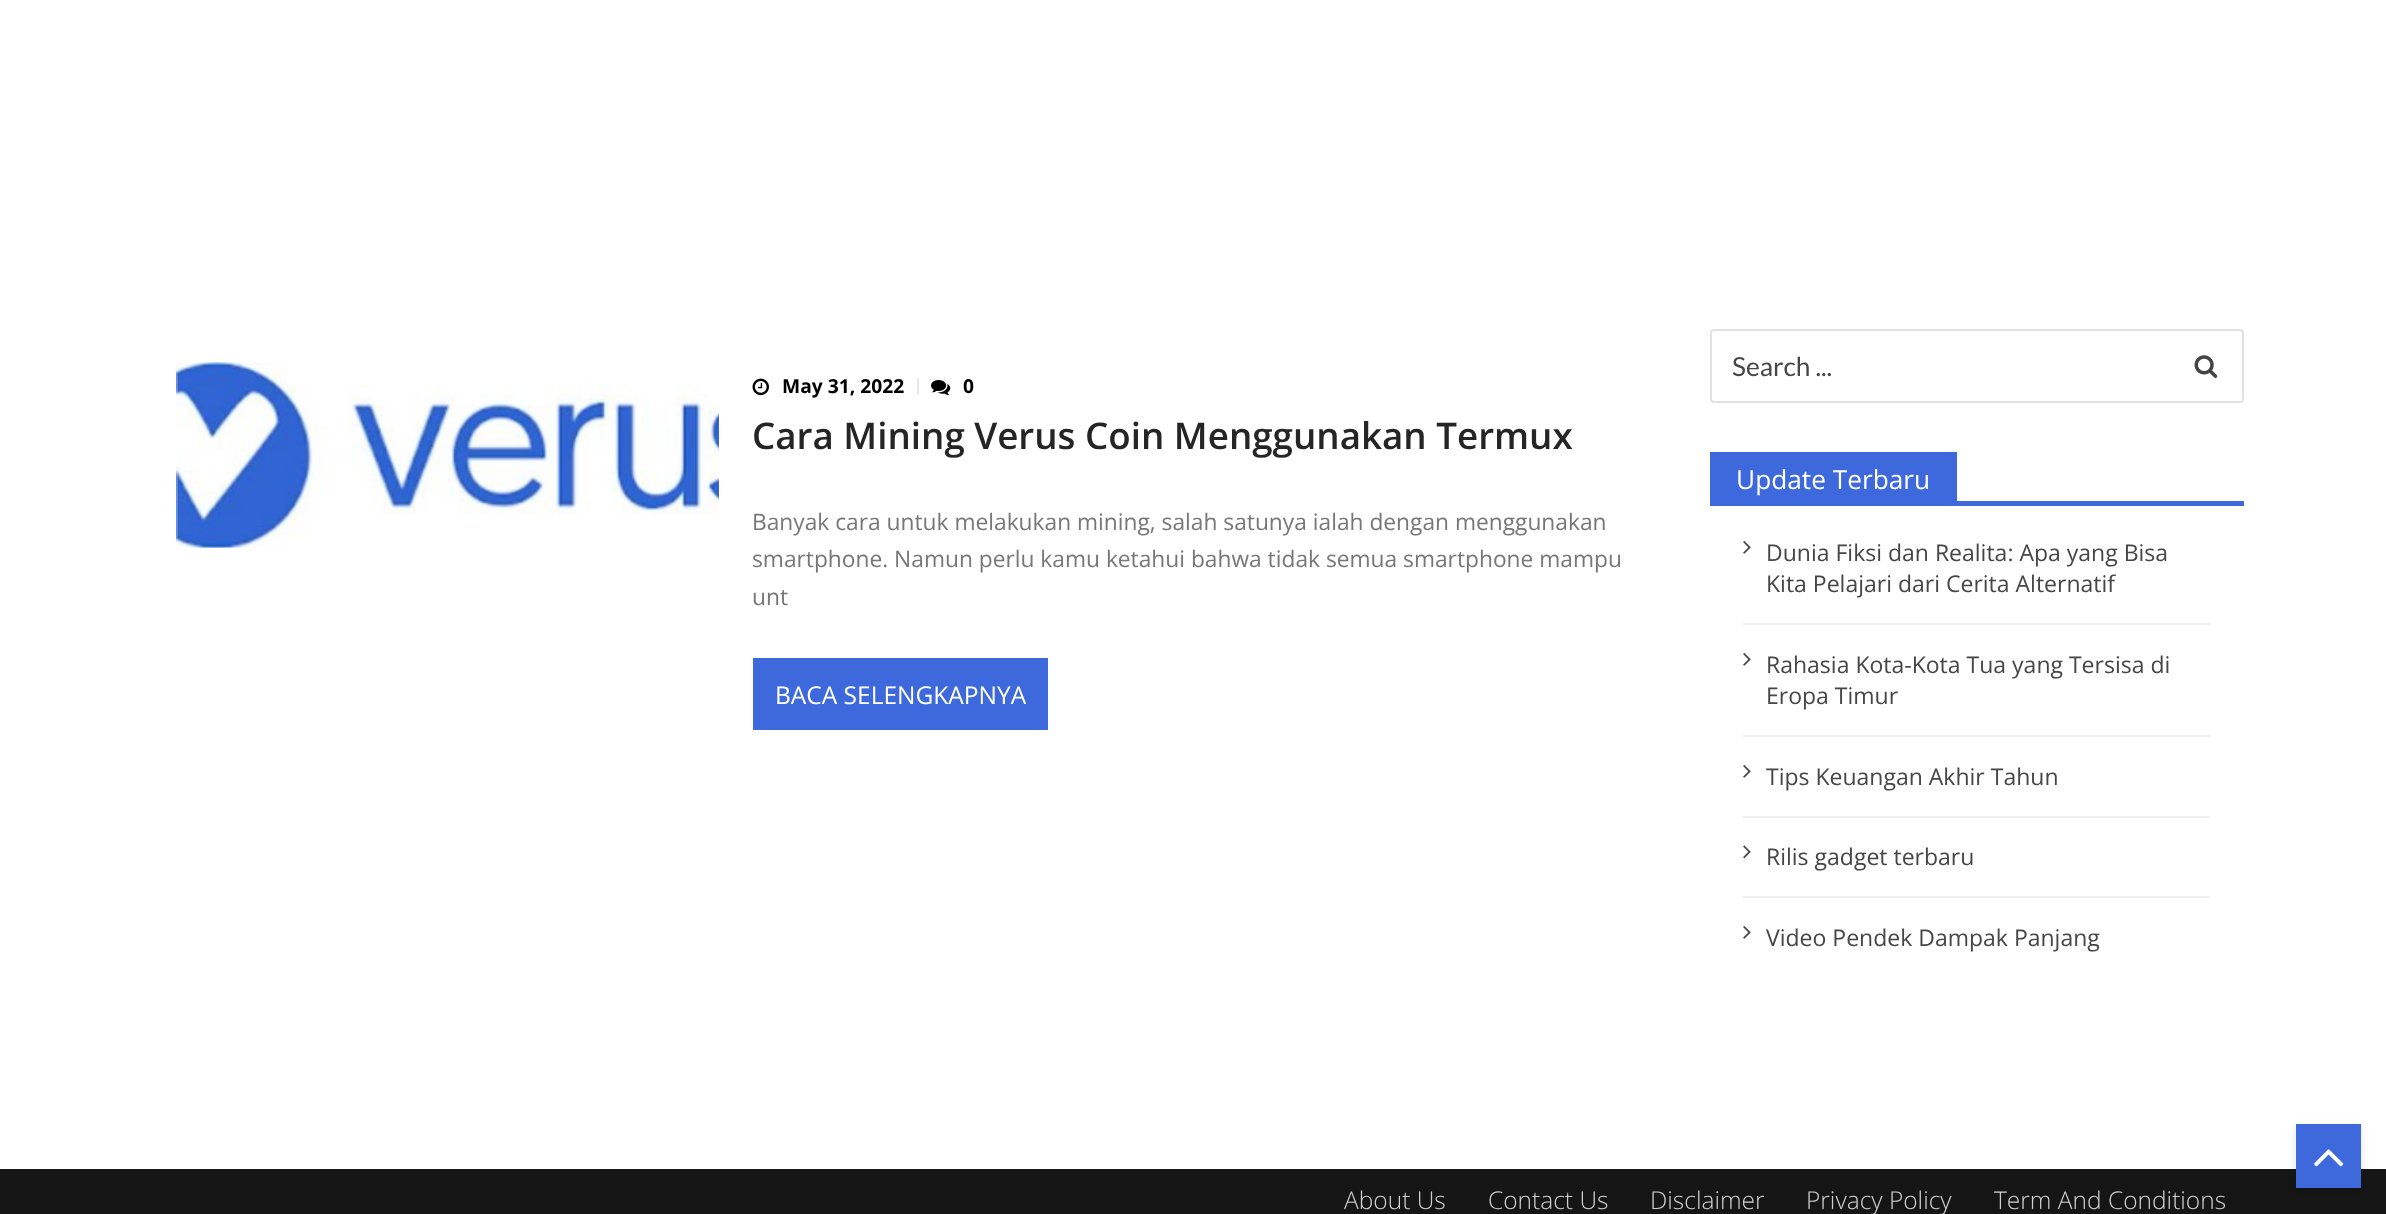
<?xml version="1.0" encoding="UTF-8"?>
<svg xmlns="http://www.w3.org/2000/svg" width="2386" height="1214">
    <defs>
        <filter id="blur1" x="-50%" y="-200%" width="200%" height="500%"><feGaussianBlur stdDeviation="5"/></filter>
    </defs>
    <rect width="100%" height="100%" fill="#FFFFFF"/>
    <image x="176" y="362" width="543" height="186" href="img_01.png"/>
    <image x="752" y="378" width="17" height="18" href="img_02.png"/>
    <text x="782" y="393" font-family="Open Sans" font-size="19.25" font-weight="700" fill="#000000">May 31, 2022</text>
    <rect x="917" y="378" width="2" height="16" fill="#E6E6E6"/>
    <image x="931" y="380" width="20" height="16" href="img_03.png"/>
    <text x="963" y="393" font-family="Open Sans" font-size="19.25" font-weight="700" fill="#000000">0</text>
    <text x="752" y="449" font-family="Open Sans" font-size="36.75" font-weight="600" fill="#252525">Cara Mining Verus Coin Menggunakan Termux</text>
    <text font-family="Open Sans" font-size="22.75" fill="#777777">
        <tspan x="752" y="530">Banyak cara untuk melakukan mining, salah satunya ialah dengan menggunakan</tspan>
        <tspan x="752" y="567">smartphone. Namun perlu kamu ketahui bahwa tidak semua smartphone mampu</tspan>
        <tspan x="752" y="605">unt</tspan>
    </text>
    <rect x="753" y="658" width="295" height="72" fill="#3E69DC"/>
    <text x="775" y="704" font-family="Open Sans" font-size="24.5" fill="#FFFFFF">BACA SELENGKAPNYA</text>
    <rect x="1711" y="330" width="532" height="72" rx="3" fill="none" stroke="#E1E1E1" stroke-width="2"/>
    <text x="1732" y="376" font-family="Lato" font-size="26.25" fill="#464646">Search ...</text>
    <image x="2194" y="355" width="24" height="23" href="img_04.png"/>
    <rect x="1710" y="452" width="247" height="49" fill="#3E69DC"/>
    <text x="1736" y="489" font-family="Open Sans" font-size="26.25" fill="#FFFFFF">Update Terbaru</text>
    <rect x="1710" y="501" width="534" height="5" fill="#3E69DC"/>
    <rect x="1743" y="623" width="467" height="2" fill="#EFEFEF"/>
    <image x="1743" y="541" width="8" height="13" href="img_05.png"/>
    <text font-family="Open Sans" font-size="23" fill="#464646">
        <tspan x="1766" y="561">Dunia Fiksi dan Realita: Apa yang Bisa</tspan>
        <tspan x="1766" y="592">Kita Pelajari dari Cerita Alternatif</tspan>
    </text>
    <rect x="1743" y="735" width="467" height="2" fill="#EFEFEF"/>
    <image x="1743" y="653" width="8" height="13" href="img_05.png"/>
    <text font-family="Open Sans" font-size="23" fill="#464646">
        <tspan x="1766" y="673">Rahasia Kota-Kota Tua yang Tersisa di</tspan>
        <tspan x="1766" y="704">Eropa Timur</tspan>
    </text>
    <rect x="1743" y="816" width="467" height="2" fill="#EFEFEF"/>
    <image x="1743" y="765" width="8" height="13" href="img_05.png"/>
    <text x="1766" y="785" font-family="Open Sans" font-size="23" fill="#464646">Tips Keuangan Akhir Tahun</text>
    <rect x="1743" y="896" width="467" height="2" fill="#EFEFEF"/>
    <image x="1743" y="845" width="8" height="14" href="img_06.png"/>
    <text x="1766" y="865" font-family="Open Sans" font-size="23" fill="#464646">Rilis gadget terbaru</text>
    <image x="1743" y="926" width="8" height="13" href="img_05.png"/>
    <text x="1766" y="946" font-family="Open Sans" font-size="23" fill="#464646">Video Pendek Dampak Panjang</text>
    <rect x="0" y="1169" width="2386" height="45" fill="#151515"/>
    <text x="1344" y="1209" font-family="Open Sans" font-size="24.5" font-weight="300" fill="#D0D0D0">About Us</text>
    <text x="1488" y="1209" font-family="Open Sans" font-size="24.5" font-weight="300" fill="#D0D0D0">Contact Us</text>
    <text x="1650" y="1209" font-family="Open Sans" font-size="24.5" font-weight="300" fill="#D0D0D0">Disclaimer</text>
    <text x="1806" y="1209" font-family="Open Sans" font-size="24.5" font-weight="300" fill="#D0D0D0">Privacy Policy</text>
    <text x="1994" y="1209" font-family="Open Sans" font-size="24.5" font-weight="300" fill="#D0D0D0">Term And Conditions</text>
    <rect x="2296" y="1127" width="65" height="65" fill="#000000" fill-opacity="0.1" filter="url(#blur1)"/>
    <rect x="2296" y="1124" width="65" height="64" fill="#3E69DC"/>
    <image x="2314" y="1149" width="30" height="18" href="img_07.png"/>
</svg>
